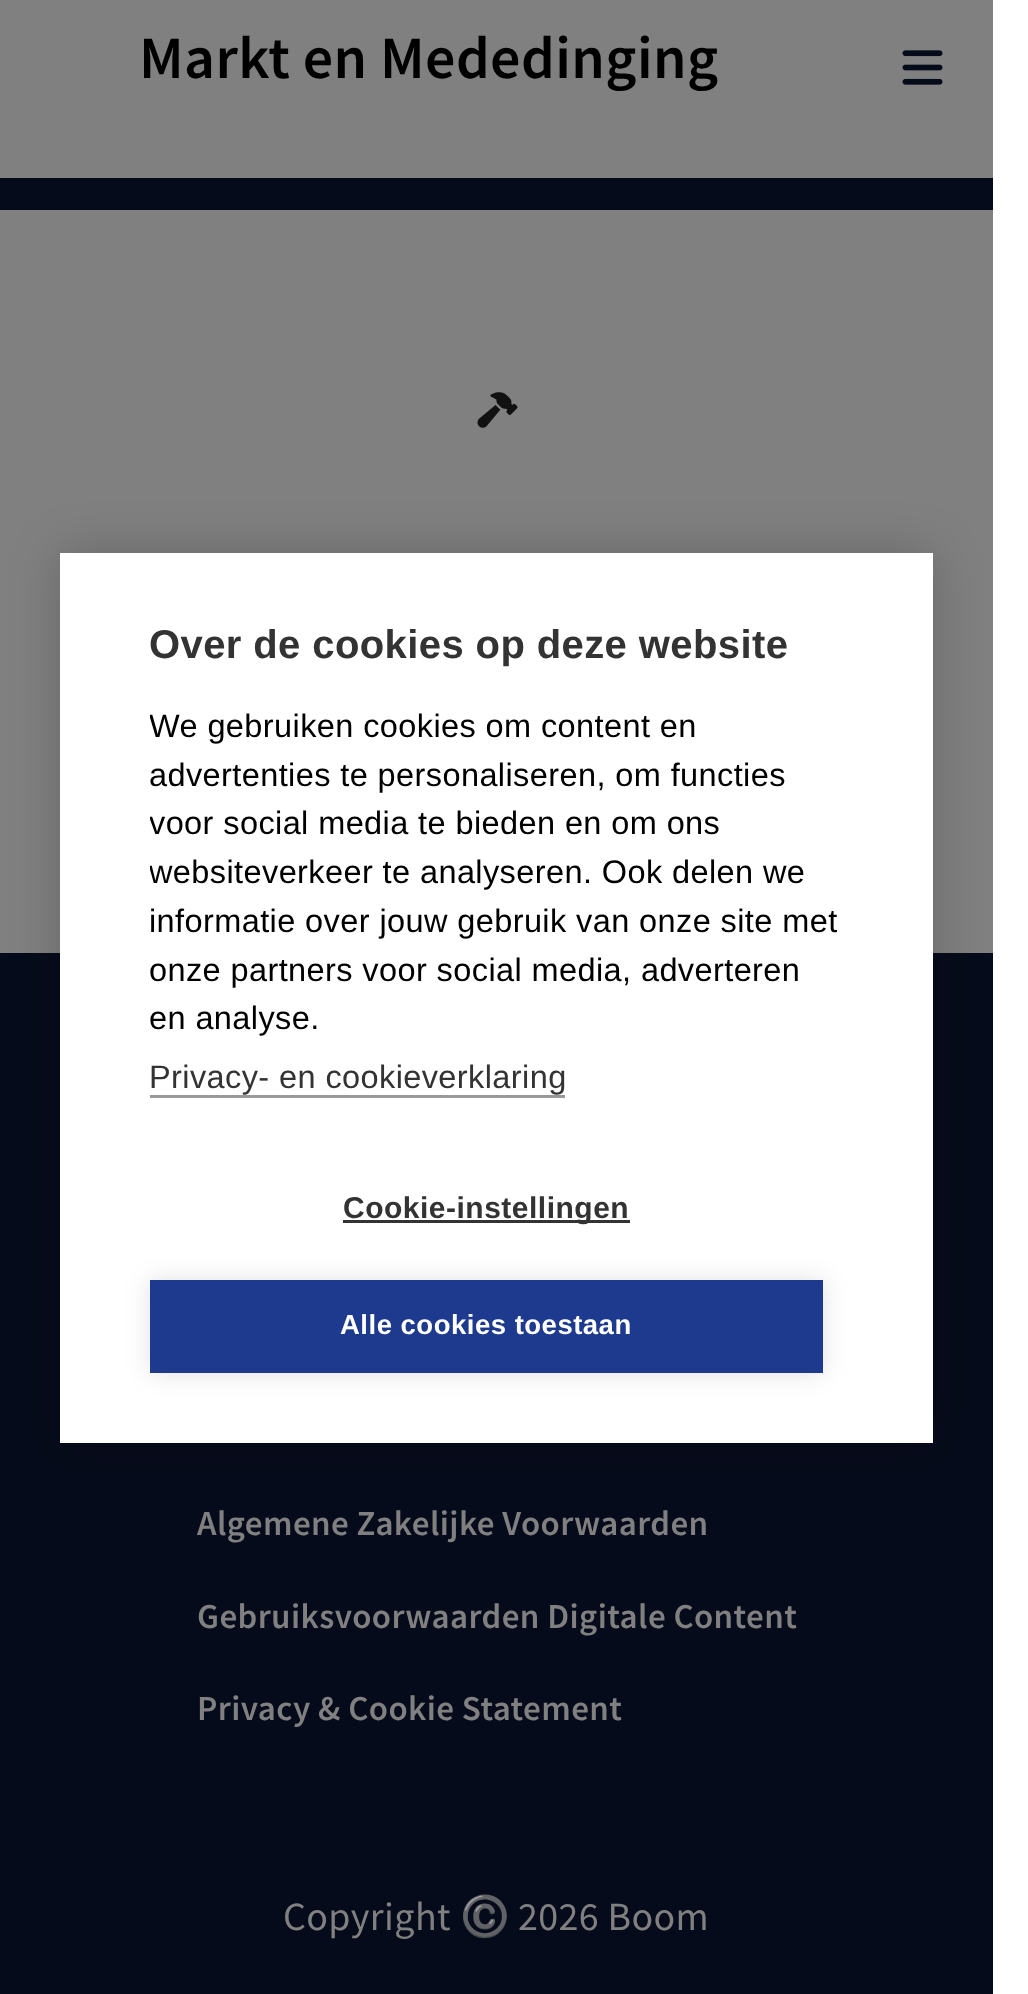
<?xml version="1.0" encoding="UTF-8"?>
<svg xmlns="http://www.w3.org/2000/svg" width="1028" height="1994">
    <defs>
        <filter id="blur1" x="-50%" y="-200%" width="200%" height="500%"><feGaussianBlur stdDeviation="25"/></filter>
        <clipPath id="clip1"><rect x="150" y="623" width="693" height="540"/></clipPath>
        <filter id="blur2" x="-50%" y="-200%" width="200%" height="500%"><feGaussianBlur stdDeviation="12.5"/></filter>
    </defs>
    <rect width="100%" height="100%" fill="#FFFFFF"/>
    <rect x="0" y="0" width="993" height="953" fill="#808080"/>
    <rect x="0" y="178" width="993" height="32" fill="#060B1B"/>
    <text x="139" y="78" font-family="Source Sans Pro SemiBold" font-size="60" font-weight="600" letter-spacing="0.4" fill="#000000">Markt en Mededinging</text>
    <image x="902" y="50" width="41" height="35" href="img_01.png"/>
    <image x="477" y="392" width="41" height="36" href="img_02.png"/>
    <rect x="0" y="953" width="993" height="1041" fill="#060B1B"/>
    <text x="197" y="1535" font-family="Source Sans Pro SemiBold" font-size="35" font-weight="600" letter-spacing="0.4" fill="#808080">Algemene Zakelijke Voorwaarden</text>
    <text x="197" y="1628" font-family="Source Sans Pro SemiBold" font-size="35" font-weight="600" letter-spacing="0.4" fill="#808080">Gebruiksvoorwaarden Digitale Content</text>
    <text x="197" y="1720" font-family="Source Sans Pro SemiBold" font-size="35" font-weight="600" letter-spacing="0.4" fill="#808080">Privacy &amp; Cookie Statement</text>
    <text x="283" y="1930" font-family="Source Sans Pro" font-size="40" letter-spacing="0.4" fill="#808080">Copyright</text>
    <text x="460" y="1930" font-family="Noto Color Emoji" font-size="40" letter-spacing="0.4" fill="#808080">©️</text>
    <text x="518" y="1930" font-family="Source Sans Pro" font-size="40" letter-spacing="0.4" fill="#808080">2026 Boom</text>
    <rect x="60" y="553" width="873" height="890" fill="#000000" fill-opacity="0.2" filter="url(#blur1)"/>
    <rect x="60" y="553" width="873" height="890" fill="#FFFFFF"/>
    <text x="149" y="658" font-family="Liberation Sans" font-size="40" font-weight="700" letter-spacing="0.4" fill="#333333">Over de cookies op deze website</text>
    <g clip-path="url(#clip1)">
        <text x="149" y="737" font-family="Liberation Sans" font-size="32.5" letter-spacing="0.4" fill="#000000">We gebruiken cookies om content en</text>
    </g>
    <text x="149" y="786" font-family="Liberation Sans" font-size="32.5" letter-spacing="0.4" fill="#000000">advertenties te personaliseren, om functies</text>
    <g clip-path="url(#clip1)">
        <text font-family="Liberation Sans" font-size="32.5" letter-spacing="0.4" fill="#000000">
            <tspan x="149" y="834">voor social media te bieden en om ons</tspan>
            <tspan x="149" y="883">websiteverkeer te analyseren. Ook delen we</tspan>
        </text>
    </g>
    <text font-family="Liberation Sans" font-size="32.5" letter-spacing="0.4" fill="#000000">
        <tspan x="149" y="932">informatie over jouw gebruik van onze site met</tspan>
        <tspan x="149" y="981">onze partners voor social media, adverteren</tspan>
        <tspan x="149" y="1029">en analyse.</tspan>
    </text>
    <text x="149" y="1088" font-family="Liberation Sans" font-size="32.5" letter-spacing="0.4" fill="#333333">Privacy- en cookieverklaring</text>
    <rect x="150" y="1095" width="415" height="3" fill="#999999"/>
    <rect x="343" y="1220" width="287" height="3" fill="#333333"/>
    <text x="343" y="1218" font-family="Liberation Sans" font-size="30" font-weight="700" letter-spacing="0.5" fill="#333333">Cookie-instellingen</text>
    <rect x="150" y="1280" width="673" height="93" fill="#000000" fill-opacity="0.12" filter="url(#blur2)"/>
    <rect x="150" y="1280" width="673" height="93" fill="#1E3A8F"/>
    <text x="340" y="1334" font-family="Liberation Sans" font-size="27.5" font-weight="700" letter-spacing="0.5" fill="#FFFFFF">Alle cookies toestaan</text>
</svg>
